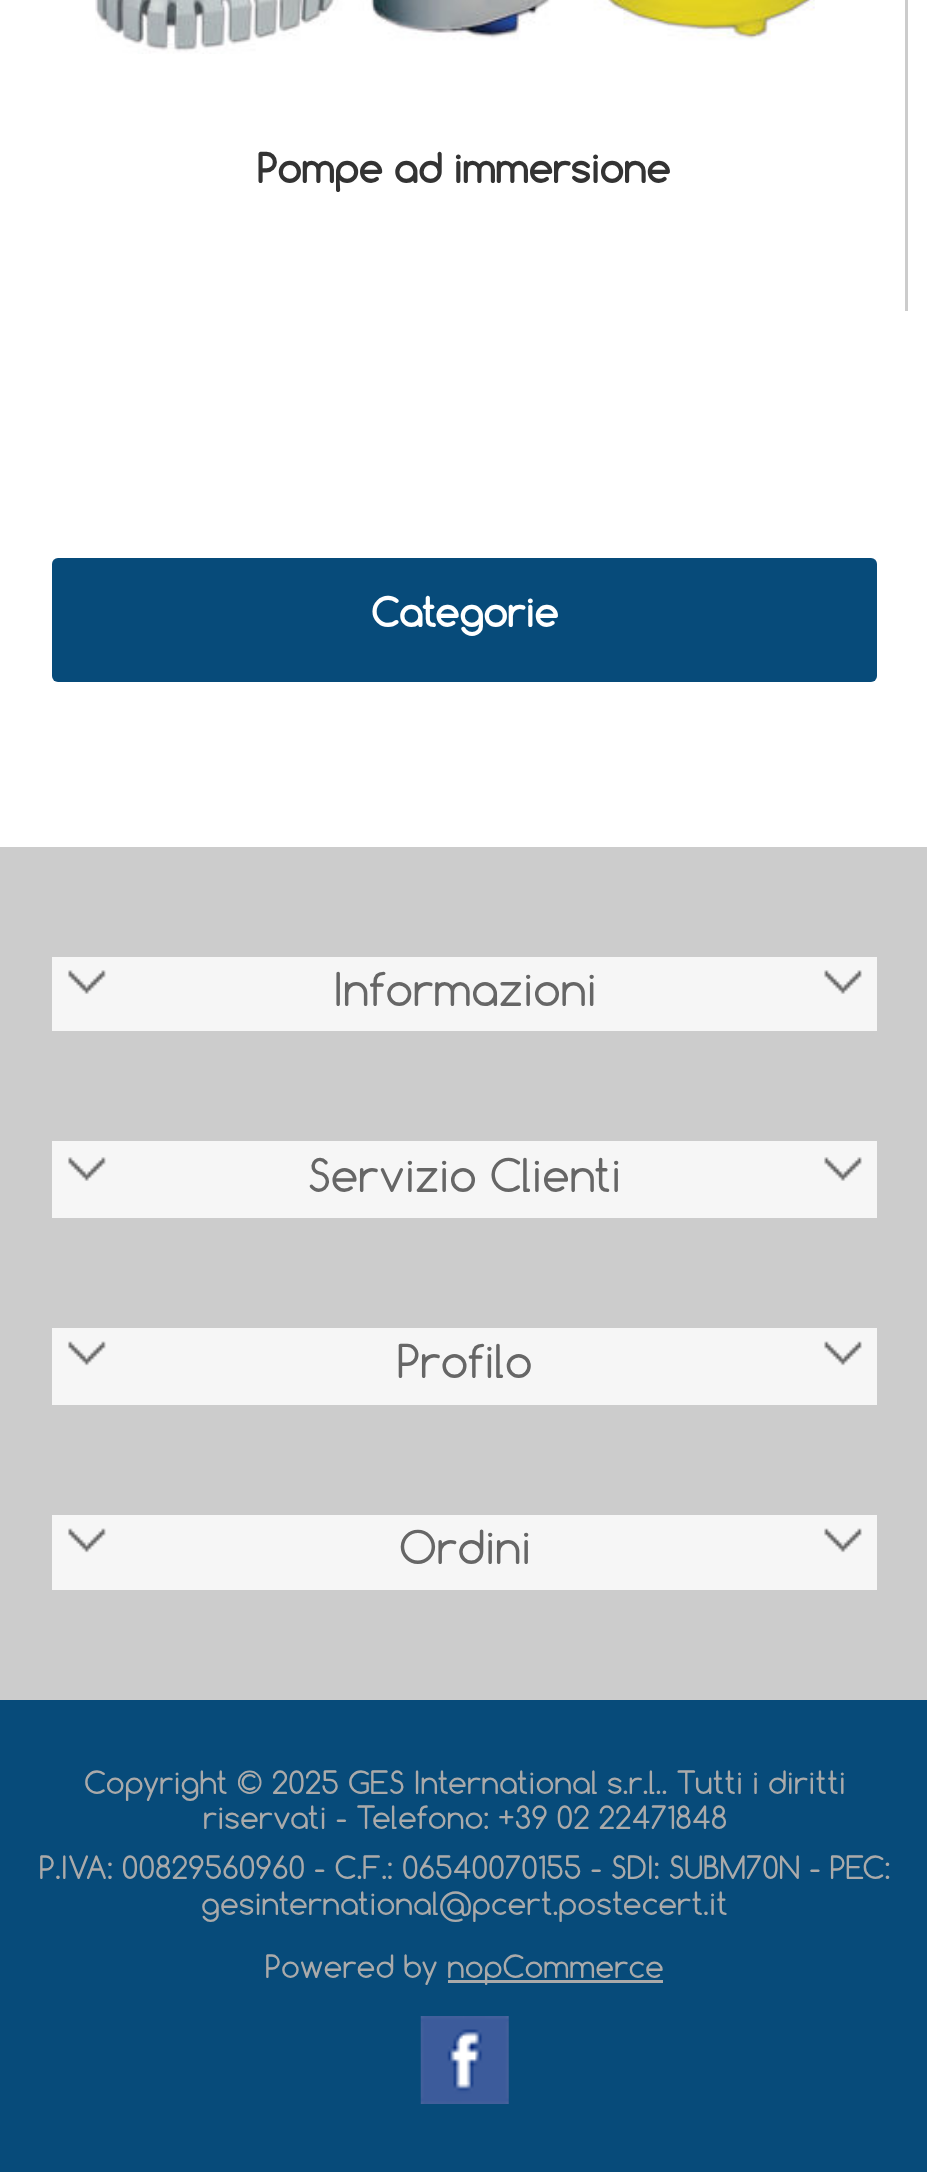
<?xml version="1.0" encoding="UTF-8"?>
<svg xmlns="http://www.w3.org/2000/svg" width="927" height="2172">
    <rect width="100%" height="100%" fill="#FFFFFF"/>
    <path d="M 22 -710 H 839 C 877 -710 908 -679 908 -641 V 311 H 22 Z M 22 -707 H 839 C 875 -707 905 -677 905 -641 V 311 H 22 Z" fill="#CCCCCC" fill-rule="evenodd"/>
    <image x="95" y="0" width="720" height="54" href="img_01.png"/>
    <text x="257" y="183" font-family="Comfortaa" font-size="38.5" font-weight="700" fill="#333333">Pompe ad immersione</text>
    <rect x="52" y="558" width="825" height="124" rx="6" fill="#074B7A"/>
    <text x="371" y="627" font-family="Comfortaa" font-size="38.5" font-weight="700" fill="#FFFFFF">Categorie</text>
    <rect x="0" y="847" width="927" height="853" fill="#CCCCCC"/>
    <rect x="52" y="957" width="825" height="74" fill="#F6F6F6"/>
    <image x="68" y="970" width="38" height="24" href="img_02.png"/>
    <text x="333" y="1006" font-family="Comfortaa" font-size="44" fill="#666666">Informazioni</text>
    <image x="824" y="970" width="38" height="24" href="img_03.png"/>
    <rect x="52" y="1141" width="825" height="77" fill="#F6F6F6"/>
    <image x="68" y="1157" width="38" height="24" href="img_04.png"/>
    <text x="308" y="1192" font-family="Comfortaa" font-size="44" fill="#666666">Servizio Clienti</text>
    <image x="824" y="1157" width="38" height="24" href="img_05.png"/>
    <rect x="52" y="1328" width="825" height="77" fill="#F6F6F6"/>
    <image x="68" y="1341" width="38" height="25" href="img_06.png"/>
    <text x="397" y="1378" font-family="Comfortaa" font-size="44" fill="#666666">Profilo</text>
    <image x="824" y="1341" width="38" height="25" href="img_07.png"/>
    <rect x="52" y="1515" width="825" height="75" fill="#F6F6F6"/>
    <image x="68" y="1528" width="38" height="25" href="img_06.png"/>
    <text x="399" y="1564" font-family="Comfortaa" font-size="44" fill="#666666">Ordini</text>
    <image x="824" y="1528" width="38" height="25" href="img_07.png"/>
    <rect x="0" y="1700" width="927" height="472" fill="#074B7A"/>
    <text x="84" y="1794" font-family="Comfortaa" font-size="30.25" fill="#AAAAAA">Copyright © 2025 GES International s.r.l.. Tutti i diritti</text>
    <text x="203" y="1829" font-family="Comfortaa" font-size="30.25" fill="#AAAAAA">riservati - Telefono: +39 02 22471848</text>
    <text x="39" y="1879" font-family="Comfortaa" font-size="30.25" fill="#AAAAAA">P.IVA: 00829560960 - C.F.: 06540070155 - SDI: SUBM70N - PEC:</text>
    <text x="201" y="1915" font-family="Comfortaa" font-size="30.25" fill="#AAAAAA">gesinternational@pcert.postecert.it</text>
    <text x="265" y="1978" font-family="Comfortaa" font-size="30.25" fill="#AAAAAA">Powered by</text>
    <rect x="448" y="1980" width="215" height="3" fill="#AAAAAA"/>
    <text x="447" y="1978" font-family="Comfortaa" font-size="30.25" fill="#AAAAAA">nopCommerce</text>
    <image x="420" y="2016" width="89" height="88" href="img_08.png"/>
</svg>
